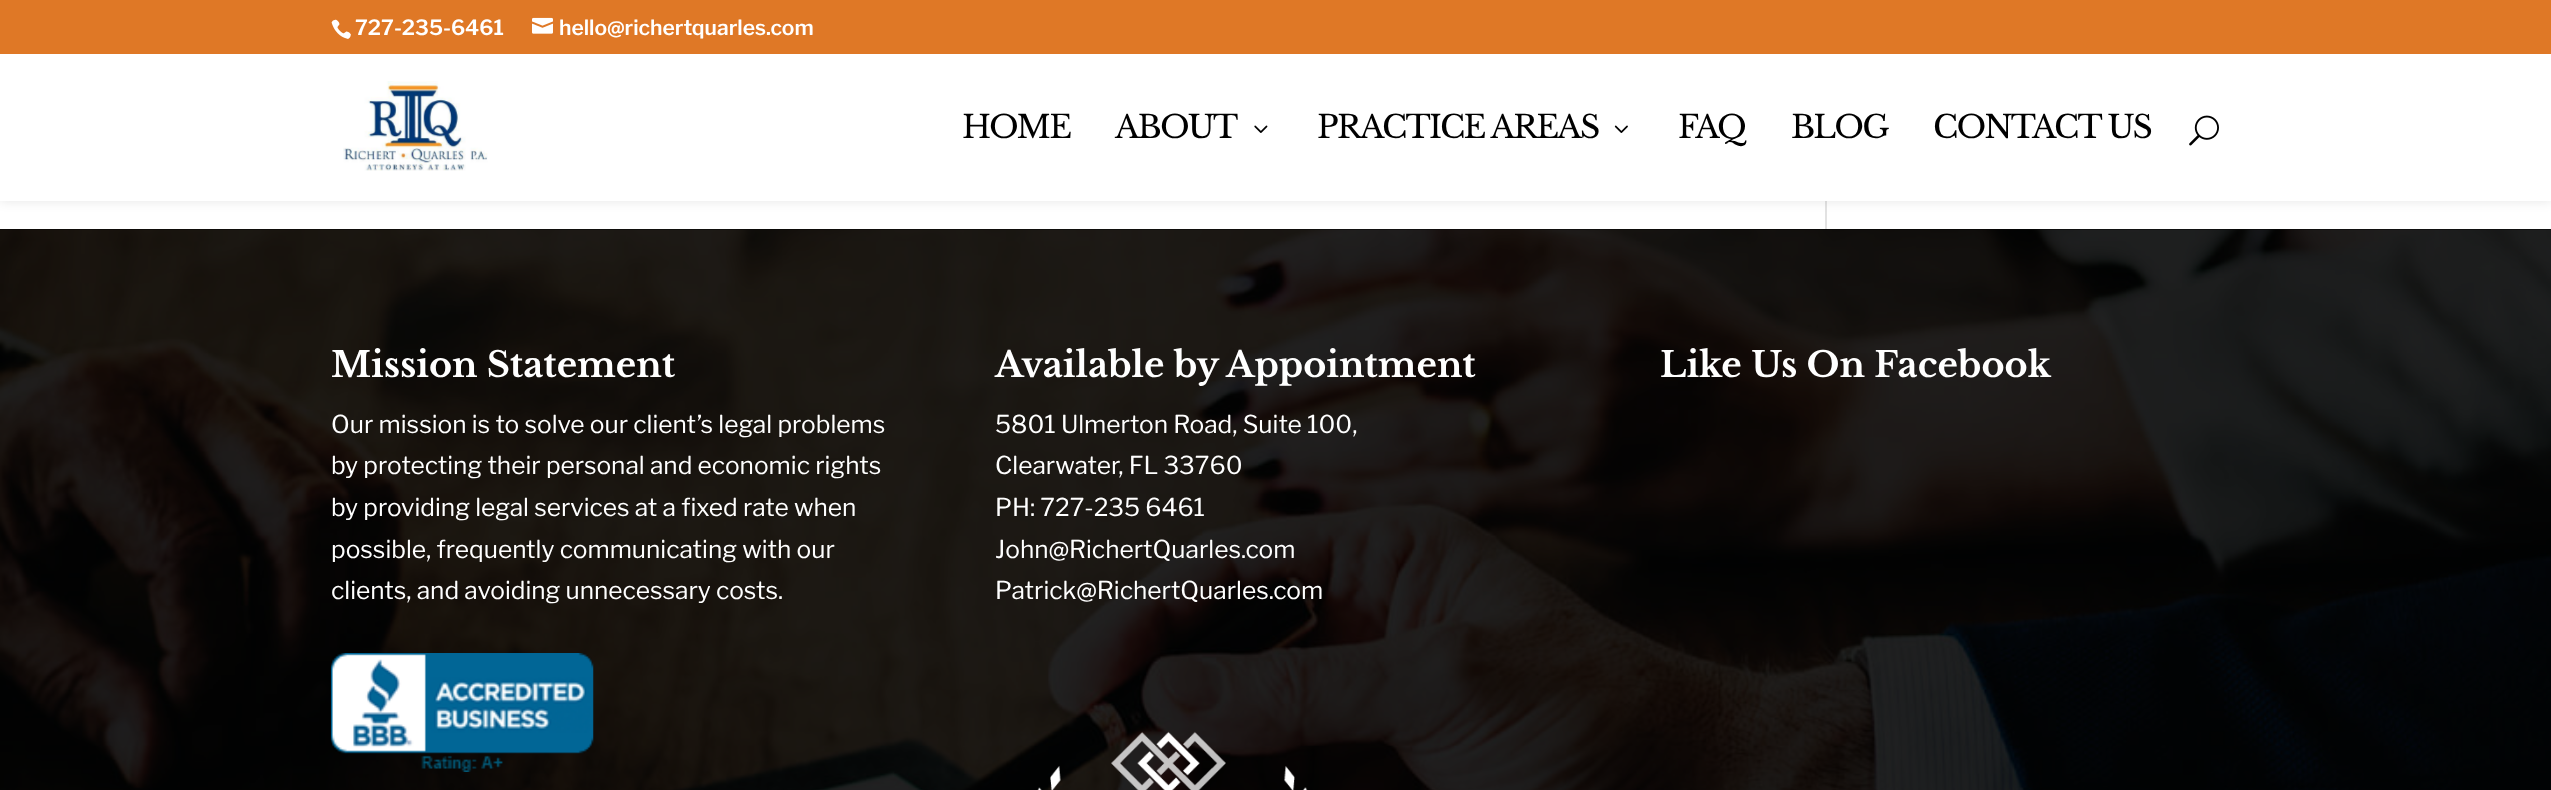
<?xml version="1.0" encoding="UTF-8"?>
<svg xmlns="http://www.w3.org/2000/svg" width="2551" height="790">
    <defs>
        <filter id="blur1" x="-50%" y="-200%" width="200%" height="500%"><feGaussianBlur stdDeviation="6"/></filter>
    </defs>
    <rect width="100%" height="100%" fill="#FFFFFF"/>
    <rect x="1825" y="201" width="2" height="28" fill="#E2E2E2"/>
    <rect x="0" y="54" width="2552" height="147" fill="#000000" fill-opacity="0.1" filter="url(#blur1)"/>
    <rect x="0" y="0" width="2551" height="54" fill="#DF7826"/>
    <image x="331" y="19" width="20" height="20" href="img_01.png"/>
    <text x="355" y="35" font-family="Libre Franklin" font-size="21" font-weight="600" fill="#FFFFFF">727-235-6461</text>
    <image x="532" y="17" width="21" height="17" href="img_02.png"/>
    <text x="559" y="35" font-family="Libre Franklin" font-size="21" font-weight="600" fill="#FFFFFF">hello@richertquarles.com</text>
    <rect x="0" y="54" width="2551" height="147" fill="#FFFFFF"/>
    <image x="343" y="81" width="145" height="90" href="img_03.png"/>
    <text x="962" y="138" font-family="Libre Baskerville" font-size="31.5" letter-spacing="-1.75" fill="#000000">HOME</text>
    <text x="1115" y="138" font-family="Libre Baskerville" font-size="31.5" letter-spacing="-1.75" fill="#000000">ABOUT</text>
    <image x="1254" y="125" width="14" height="8" href="img_04.png"/>
    <text x="1317" y="138" font-family="Libre Baskerville" font-size="31.5" letter-spacing="-1.75" fill="#000000">PRACTICE AREAS</text>
    <image x="1614" y="125" width="14" height="8" href="img_05.png"/>
    <text x="1678" y="138" font-family="Libre Baskerville" font-size="31.5" letter-spacing="-1.75" fill="#000000">FAQ</text>
    <text x="1791" y="138" font-family="Libre Baskerville" font-size="31.5" letter-spacing="-1.75" fill="#000000">BLOG</text>
    <text x="1933" y="138" font-family="Libre Baskerville" font-size="31.5" letter-spacing="-1.75" fill="#000000">CONTACT US</text>
    <image x="2189" y="115" width="30" height="31" href="img_06.png"/>
    <rect x="0" y="229" width="2551" height="1" fill="#040404"/>
    <image x="0" y="229" width="2551" height="561" href="img_07.png"/>
    <text x="331" y="377" font-family="Libre Baskerville" font-size="35" font-weight="700" fill="#FFFFFF">Mission Statement</text>
    <text font-family="Libre Franklin" font-size="24.5" fill="#FFFFFF">
        <tspan x="331" y="433">Our mission is to solve our client’s legal problems</tspan>
        <tspan x="331" y="474">by protecting their personal and economic rights</tspan>
        <tspan x="331" y="516">by providing legal services at a fixed rate when</tspan>
        <tspan x="331" y="558">possible, frequently communicating with our</tspan>
        <tspan x="331" y="599">clients, and avoiding unnecessary costs.</tspan>
    </text>
    <image x="330" y="653" width="264" height="119" href="img_08.png"/>
    <text x="995" y="377" font-family="Libre Baskerville" font-size="35" font-weight="700" fill="#FFFFFF">Available by Appointment</text>
    <text font-family="Libre Franklin" font-size="24.5" fill="#FFFFFF">
        <tspan x="995" y="433">5801 Ulmerton Road, Suite 100,</tspan>
        <tspan x="995" y="474">Clearwater, FL 33760</tspan>
        <tspan x="995" y="516">PH: 727-235 6461</tspan>
        <tspan x="995" y="558">John@RichertQuarles.com</tspan>
        <tspan x="995" y="599">Patrick@RichertQuarles.com</tspan>
    </text>
    <image x="1037" y="731" width="271" height="59" href="img_09.png"/>
    <text x="1660" y="377" font-family="Libre Baskerville" font-size="35" font-weight="700" fill="#FFFFFF">Like Us On Facebook</text>
</svg>
